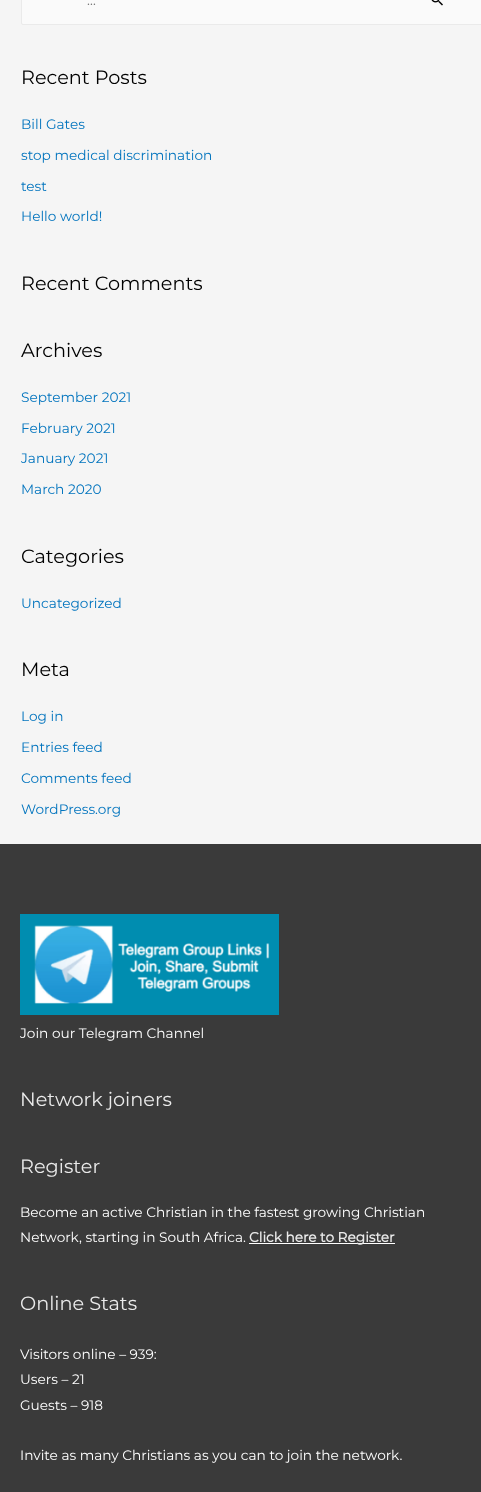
<?xml version="1.0" encoding="UTF-8"?>
<svg xmlns="http://www.w3.org/2000/svg" width="481" height="1492">
    <rect width="100%" height="100%" fill="#F5F5F5"/>
    <rect x="21.5" y="-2.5" width="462" height="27" rx="1.5" fill="#FAFAFA" stroke="#EAEAEA"/>
    <text x="87" y="5" font-family="Montserrat" font-size="13.7" font-weight="100" fill="#757575">…</text>
    <image x="431" y="0" width="12" height="6" href="img_01.png"/>
    <text x="21" y="84" font-family="Montserrat" font-size="19.25" font-weight="100" fill="#000000">Recent Posts</text>
    <text x="21" y="129" font-family="Montserrat" font-size="13.7" font-weight="100" fill="#0274BE">Bill Gates</text>
    <text x="21" y="160" font-family="Montserrat" font-size="13.7" font-weight="100" fill="#0274BE">stop medical discrimination</text>
    <text x="21" y="191" font-family="Montserrat" font-size="13.7" font-weight="100" fill="#0274BE">test</text>
    <text x="21" y="221" font-family="Montserrat" font-size="13.7" font-weight="100" fill="#0274BE">Hello world!</text>
    <text x="21" y="290" font-family="Montserrat" font-size="19.25" font-weight="100" fill="#000000">Recent Comments</text>
    <text x="21" y="357" font-family="Montserrat" font-size="19.25" font-weight="100" fill="#000000">Archives</text>
    <text x="21" y="402" font-family="Montserrat" font-size="13.7" font-weight="100" fill="#0274BE">September 2021</text>
    <text x="21" y="433" font-family="Montserrat" font-size="13.7" font-weight="100" fill="#0274BE">February 2021</text>
    <text x="21" y="463" font-family="Montserrat" font-size="13.7" font-weight="100" fill="#0274BE">January 2021</text>
    <text x="21" y="494" font-family="Montserrat" font-size="13.7" font-weight="100" fill="#0274BE">March 2020</text>
    <text x="21" y="563" font-family="Montserrat" font-size="19.25" font-weight="100" fill="#000000">Categories</text>
    <text x="21" y="608" font-family="Montserrat" font-size="13.7" font-weight="100" fill="#0274BE">Uncategorized</text>
    <text x="21" y="676" font-family="Montserrat" font-size="19.25" font-weight="100" fill="#000000">Meta</text>
    <text x="21" y="721" font-family="Montserrat" font-size="13.7" font-weight="100" fill="#0274BE">Log in</text>
    <text x="21" y="752" font-family="Montserrat" font-size="13.7" font-weight="100" fill="#0274BE">Entries feed</text>
    <text x="21" y="783" font-family="Montserrat" font-size="13.7" font-weight="100" fill="#0274BE">Comments feed</text>
    <text x="21" y="814" font-family="Montserrat" font-size="13.7" font-weight="100" fill="#0274BE">WordPress.org</text>
    <rect x="0" y="844" width="481" height="648" fill="#3A3A3A"/>
    <image x="20" y="914" width="259" height="101" href="img_02.png"/>
    <text x="20" y="1038" font-family="Montserrat" font-size="13.7" font-weight="100" fill="#FFFFFF">Join our Telegram Channel</text>
    <text x="20" y="1106" font-family="Montserrat" font-size="19.25" font-weight="100" fill="#EAEAEA">Network joiners</text>
    <text x="20" y="1173" font-family="Montserrat" font-size="19.25" font-weight="100" fill="#EAEAEA">Register</text>
    <text font-family="Montserrat" font-size="13.7" font-weight="100" fill="#FFFFFF">
        <tspan x="20" y="1217">Become an active Christian in the fastest growing Christian</tspan>
        <tspan x="20" y="1242">Network, starting in South Africa.</tspan>
    </text>
    <rect x="249" y="1243" width="146" height="1" fill="#FFFFFF"/>
    <text x="249" y="1242" font-family="Montserrat" font-size="13.7" font-weight="700" fill="#EAEAEA">Click here to Register</text>
    <text x="20" y="1310" font-family="Montserrat" font-size="19.25" font-weight="100" fill="#EAEAEA">Online Stats</text>
    <text font-family="Montserrat" font-size="13.7" font-weight="100" fill="#FFFFFF">
        <tspan x="20" y="1359">Visitors online – 939:</tspan>
        <tspan x="20" y="1384">Users – 21</tspan>
        <tspan x="20" y="1410">Guests – 918</tspan>
    </text>
    <text x="20" y="1460" font-family="Montserrat" font-size="13.7" font-weight="100" fill="#FFFFFF">Invite as many Christians as you can to join the network.</text>
</svg>
